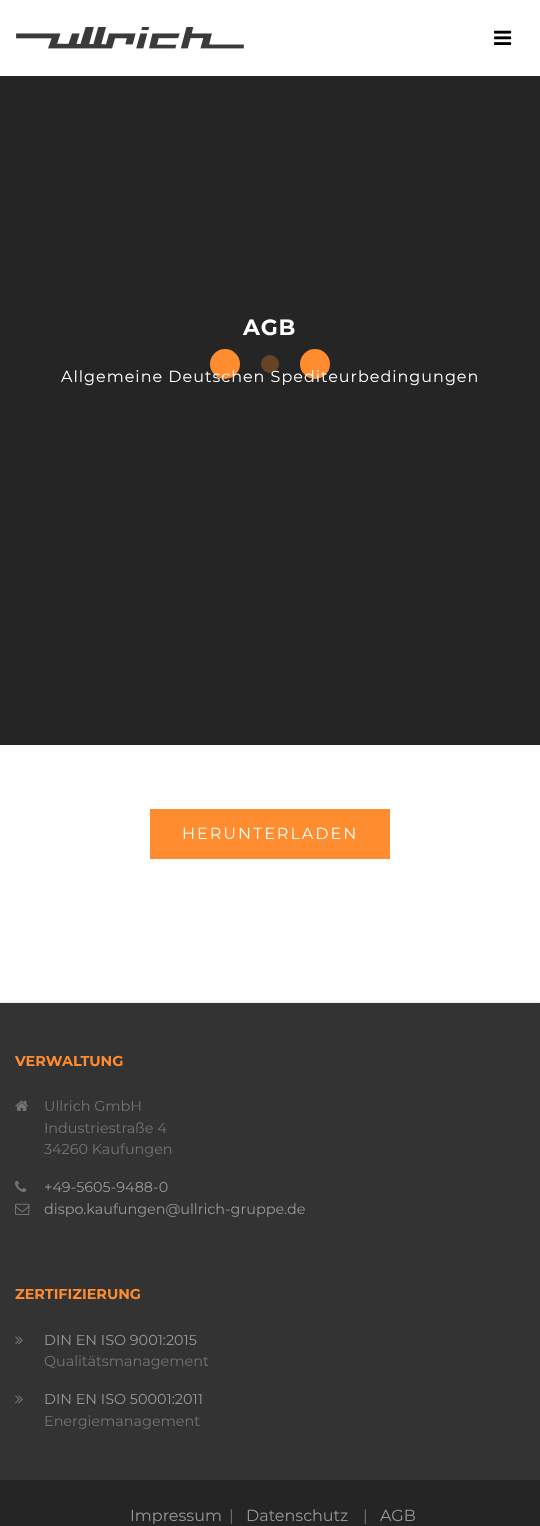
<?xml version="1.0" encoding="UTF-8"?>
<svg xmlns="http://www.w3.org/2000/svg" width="540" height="1526">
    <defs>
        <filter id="blur1" x="-50%" y="-200%" width="200%" height="500%"><feGaussianBlur stdDeviation="1.5"/></filter>
    </defs>
    <rect width="100%" height="100%" fill="#FFFFFF"/>
    <rect x="0" y="76" width="540" height="669" fill="#252525"/>
    <rect x="0" y="1" width="540" height="76" fill="#000000" fill-opacity="0.1" filter="url(#blur1)"/>
    <rect x="0" y="0" width="540" height="76" fill="#FFFFFF"/>
    <image x="16" y="27" width="228" height="22" href="img_01.png"/>
    <image x="494" y="30" width="18" height="15" href="img_02.png"/>
    <circle cx="225" cy="364" r="15" fill="#FF8C2E"/>
    <circle cx="270" cy="364" r="9" fill="#664428"/>
    <circle cx="315" cy="364" r="15" fill="#FF8C2E"/>
    <text x="243" y="335" font-family="Montserrat" font-size="22" font-weight="700" letter-spacing="1" fill="#FFFFFF">AGB</text>
    <text x="61" y="382" font-family="Montserrat" font-size="16" letter-spacing="1" fill="#FFFFFF">Allgemeine Deutschen Spediteurbedingungen</text>
    <rect x="150" y="809" width="240" height="50" fill="#FF8C2E"/>
    <text x="182" y="839" font-family="Montserrat" font-size="16" letter-spacing="2" fill="#FFFFFF">HERUNTERLADEN</text>
    <rect x="0" y="1002" width="540" height="477" fill="#000000" fill-opacity="0.1" filter="url(#blur1)"/>
    <rect x="0" y="1003" width="540" height="477" fill="#333333"/>
    <text x="15" y="1066" font-family="Montserrat" font-size="14.4" font-weight="700" fill="#FF8C2E">VERWALTUNG</text>
    <image x="15" y="1100" width="13" height="11" href="img_03.png"/>
    <text font-family="Montserrat" font-size="14.4" fill="#747474">
        <tspan x="44" y="1111">Ullrich GmbH</tspan>
        <tspan x="44" y="1133">Industriestraße 4</tspan>
        <tspan x="44" y="1154">34260 Kaufungen</tspan>
    </text>
    <image x="15" y="1180" width="12" height="12" href="img_04.png"/>
    <text x="44" y="1192" font-family="Montserrat" font-size="14.4" fill="#989898">+49-5605-9488-0</text>
    <image x="15" y="1203" width="15" height="12" href="img_05.png"/>
    <text x="44" y="1214" font-family="Montserrat" font-size="14.4" fill="#989898">dispo.kaufungen@ullrich-gruppe.de</text>
    <text x="15" y="1299" font-family="Montserrat" font-size="14.4" font-weight="700" fill="#FF8C2E">ZERTIFIZIERUNG</text>
    <image x="15" y="1336" width="8" height="9" href="img_06.png"/>
    <text x="44" y="1345" font-family="Montserrat" font-size="14.4" fill="#989898">DIN EN ISO 9001:2015</text>
    <text x="44" y="1366" font-family="Montserrat" font-size="14.4" fill="#747474">Qualitätsmanagement</text>
    <image x="15" y="1395" width="8" height="9" href="img_06.png"/>
    <text x="44" y="1404" font-family="Montserrat" font-size="14.4" fill="#989898">DIN EN ISO 50001:2011</text>
    <text x="44" y="1426" font-family="Montserrat" font-size="14.4" fill="#747474">Energiemanagement</text>
    <rect x="0" y="1480" width="540" height="46" fill="#252525"/>
    <text x="130" y="1521" font-family="Montserrat" font-size="16" fill="#989898">Impressum</text>
    <text x="229" y="1521" font-family="Montserrat" font-size="16" fill="#747474">|</text>
    <text x="246" y="1521" font-family="Montserrat" font-size="16" fill="#989898">Datenschutz</text>
    <text x="363" y="1521" font-family="Montserrat" font-size="16" fill="#747474">|</text>
    <text x="380" y="1521" font-family="Montserrat" font-size="16" fill="#989898">AGB</text>
</svg>
